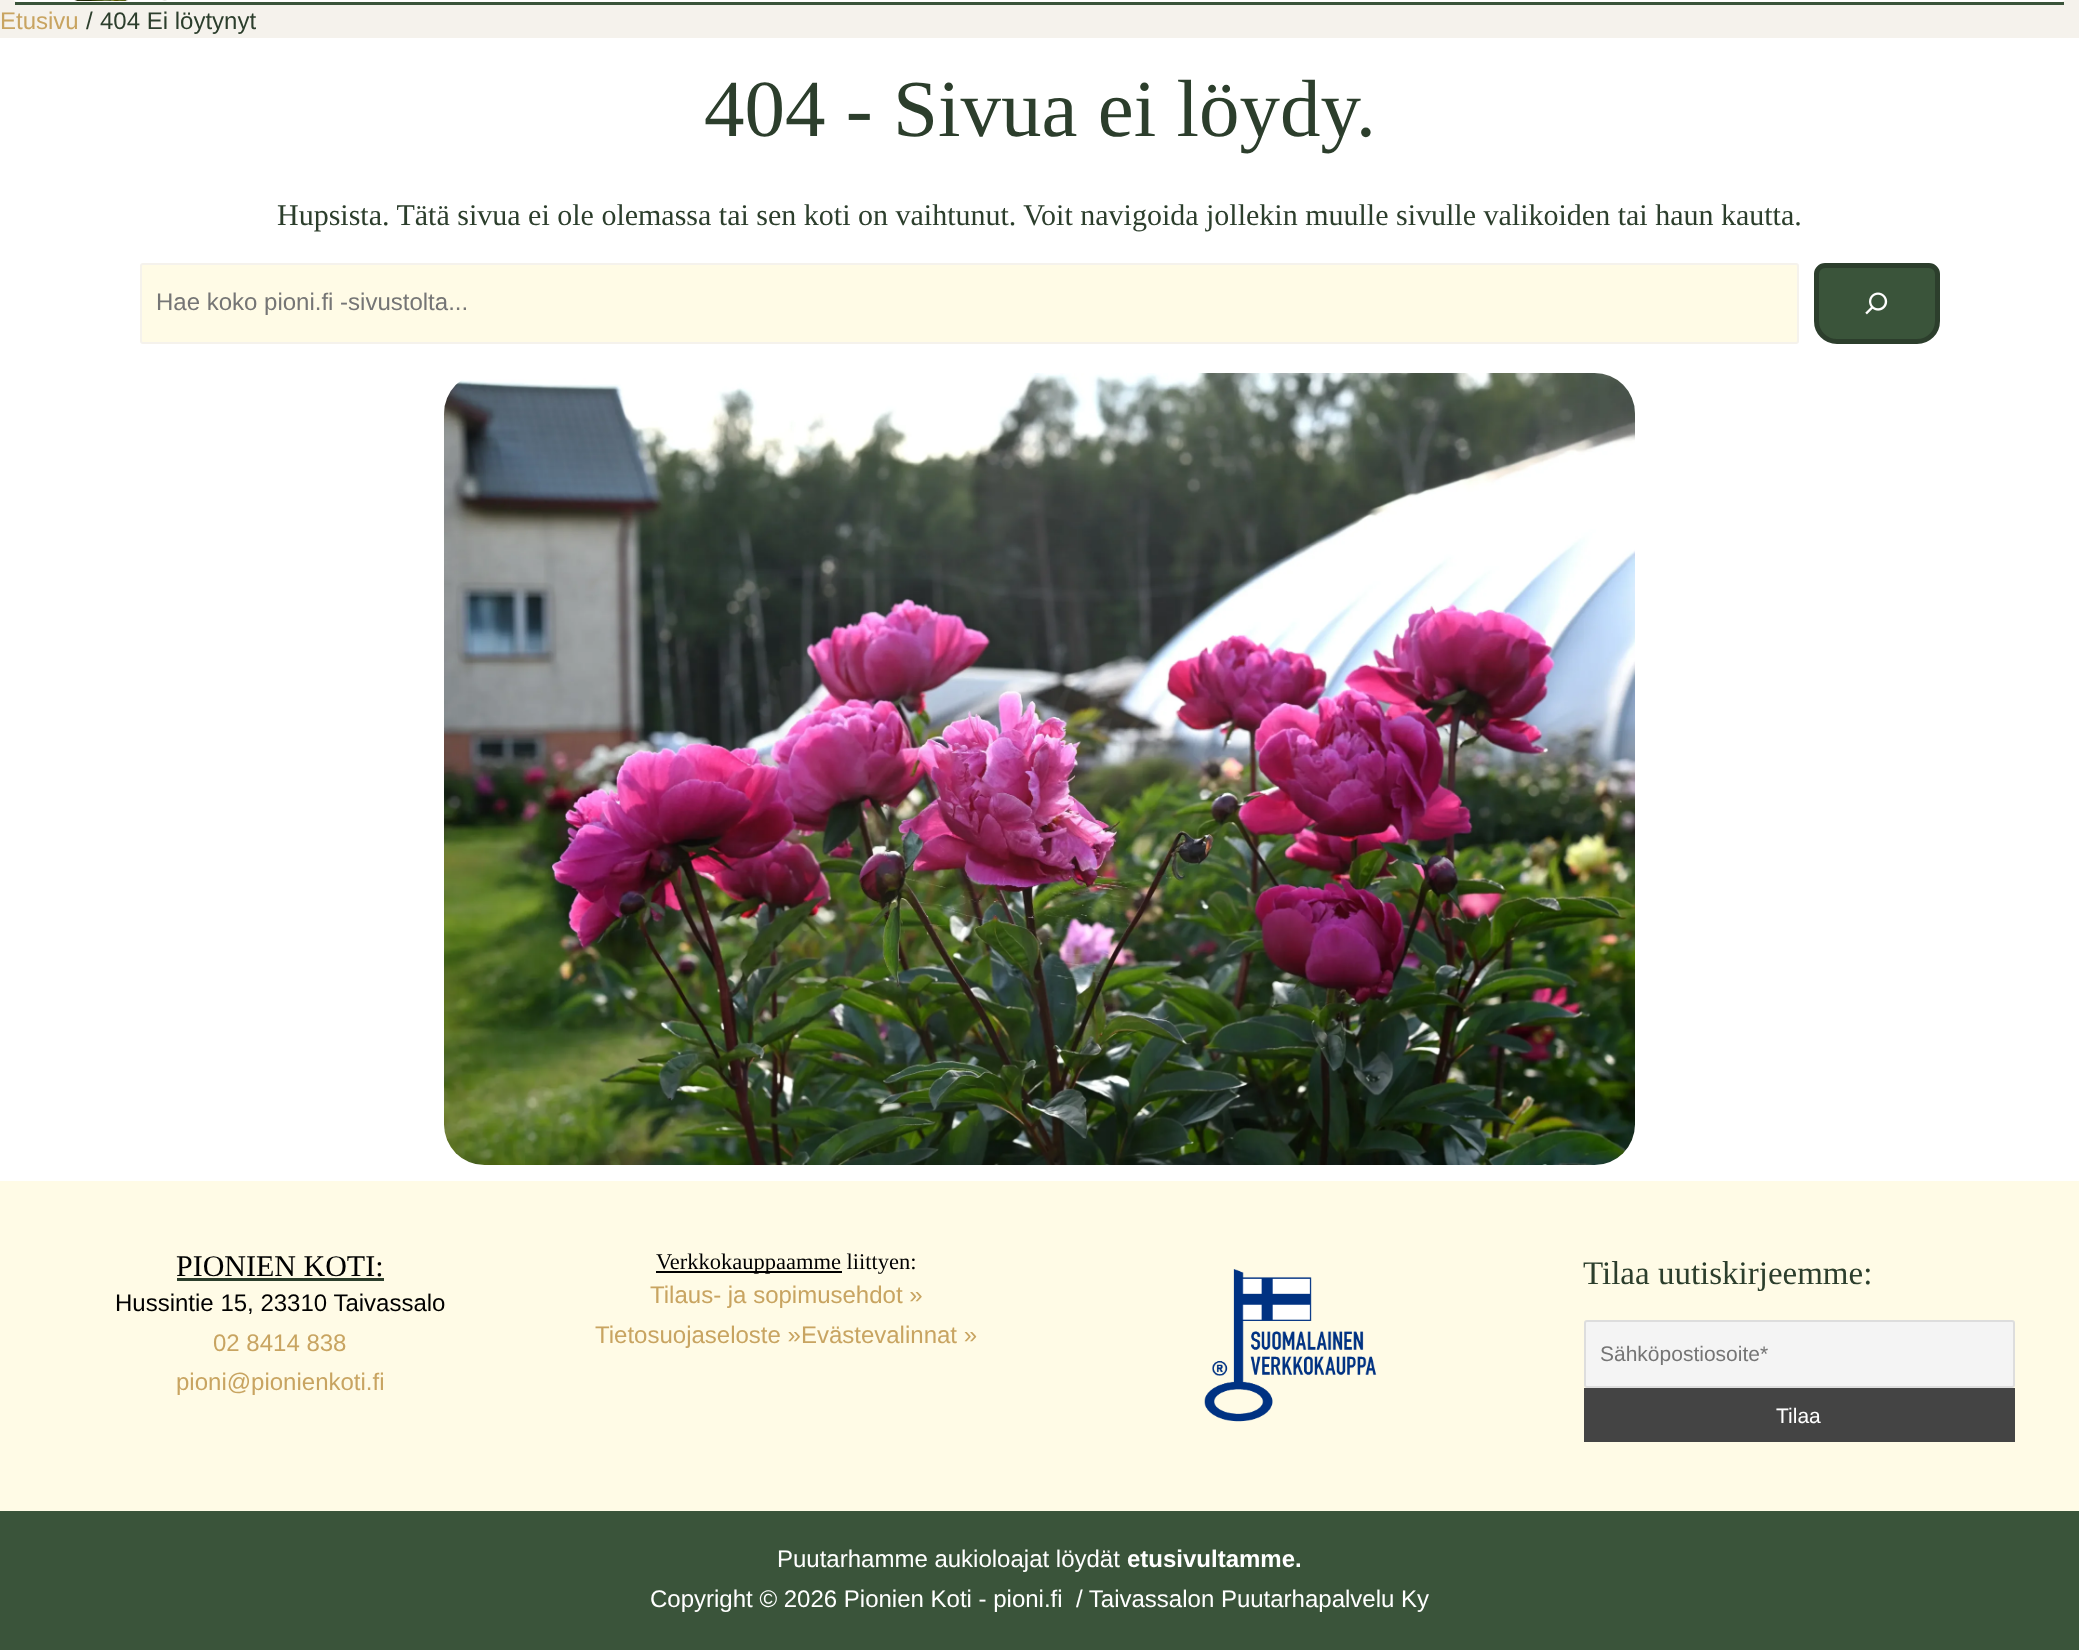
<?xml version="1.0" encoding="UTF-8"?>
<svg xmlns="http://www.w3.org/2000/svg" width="2079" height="1650">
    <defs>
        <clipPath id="clip1"><rect x="1601" y="1341" width="397" height="24"/></clipPath>
    </defs>
    <rect width="100%" height="100%" fill="#F5F2EC"/>
    <path d="M 0 -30 H 2079 V -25 C 2079 -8.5 2065.5 5 2049 5 H 30 C 13.5 5 0 -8.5 0 -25 Z" fill="#FFFFFF"/>
    <rect x="15" y="2" width="2049" height="3" fill="#3A543A"/>
    <image x="74" y="0" width="93" height="1" href="img_01.png"/>
    <text x="0" y="29" font-family="Liberation Sans" font-size="24" fill="#C8A461">Etusivu</text>
    <text x="86" y="29" font-family="Liberation Sans" font-size="24" fill="#2C3E2C">/</text>
    <text x="100" y="29" font-family="Liberation Sans" font-size="24" fill="#2C3E2C">404 Ei löytynyt</text>
    <rect x="0" y="38" width="2079" height="1143" fill="#FFFFFF"/>
    <text x="704" y="136" font-family="Liberation Serif" font-size="81" fill="#2C3E2C">404 - Sivua ei löydy.</text>
    <text x="277" y="225" font-family="Liberation Serif" font-size="30" fill="#2C3E2C">Hupsista. Tätä sivua ei ole olemassa tai sen koti on vaihtunut. Voit navigoida jollekin muulle sivulle valikoiden tai haun kautta.</text>
    <rect x="141" y="264" width="1657" height="79" rx="2" fill="#FFFBE6" stroke="#F5F2EC" stroke-width="2"/>
    <text x="156" y="310" font-family="Liberation Sans" font-size="24" fill="#757575">Hae koko pioni.fi -sivustolta...</text>
    <path d="M 1825 265.5 H 1929 C 1933.5 265.5 1937.5 269.5 1937.5 274 V 321 C 1937.5 332.5 1928.5 341.5 1917 341.5 H 1837 C 1825.5 341.5 1816.5 332.5 1816.5 321 V 274 C 1816.5 269.5 1820.5 265.5 1825 265.5 Z" fill="#3A543A" stroke="#2C3E2C" stroke-width="5"/>
    <image x="1865" y="292" width="23" height="23" href="img_02.png"/>
    <image x="444" y="373" width="1191" height="792" href="img_03.png"/>
    <rect x="0" y="1181" width="2079" height="330" fill="#FFFBE6"/>
    <text x="176" y="1276" font-family="Liberation Serif" font-size="30" fill="#000000">PIONIEN KOTI:</text>
    <rect x="177" y="1278" width="207" height="3" fill="#2C3E2C"/>
    <text x="115" y="1311" font-family="Liberation Sans" font-size="24" fill="#000000">Hussintie 15, 23310 Taivassalo</text>
    <text x="213" y="1351" font-family="Liberation Sans" font-size="24" fill="#C8A461">02 8414 838</text>
    <text x="176" y="1390" font-family="Liberation Sans" font-size="24" fill="#C8A461">pioni@pionienkoti.fi</text>
    <rect x="656" y="1271" width="186" height="2" fill="#000000"/>
    <text x="656" y="1269" font-family="Liberation Serif" font-size="22.5" fill="#000000">Verkkokauppaamme liittyen:</text>
    <text x="650" y="1303" font-family="Liberation Sans" font-size="24" fill="#C8A461">Tilaus- ja sopimusehdot »</text>
    <text x="595" y="1343" font-family="Liberation Sans" font-size="24" fill="#C8A461">Tietosuojaseloste »Evästevalinnat »</text>
    <image x="1204" y="1269" width="173" height="153" href="img_04.png"/>
    <text x="1583" y="1284" font-family="Liberation Serif" font-size="33" fill="#2C3E2C">Tilaa uutiskirjeemme:</text>
    <rect x="1585" y="1321" width="429" height="66" rx="2" fill="#F4F4F4" stroke="#DDDDDD" stroke-width="2"/>
    <g clip-path="url(#clip1)">
        <text x="1600" y="1361" font-family="Liberation Sans" font-size="21" fill="#757575">Sähköpostiosoite*</text>
    </g>
    <rect x="1584" y="1388" width="431" height="54" fill="#444444"/>
    <text x="1776" y="1423" font-family="Liberation Sans" font-size="21" fill="#FFFFFF">Tilaa</text>
    <rect x="0" y="1511" width="2079" height="139" fill="#3A543A"/>
    <text x="777" y="1567" font-family="Liberation Sans" font-size="24" fill="#FFFFFF">Puutarhamme aukioloajat löydät</text>
    <text x="1127" y="1567" font-family="Liberation Sans" font-size="24" font-weight="700" fill="#FFFFFF">etusivultamme.</text>
    <text x="650" y="1607" font-family="Liberation Sans" font-size="24" fill="#FFFFFF" xml:space="preserve">Copyright © 2026 Pionien Koti - pioni.fi  / Taivassalon Puutarhapalvelu Ky</text>
</svg>
